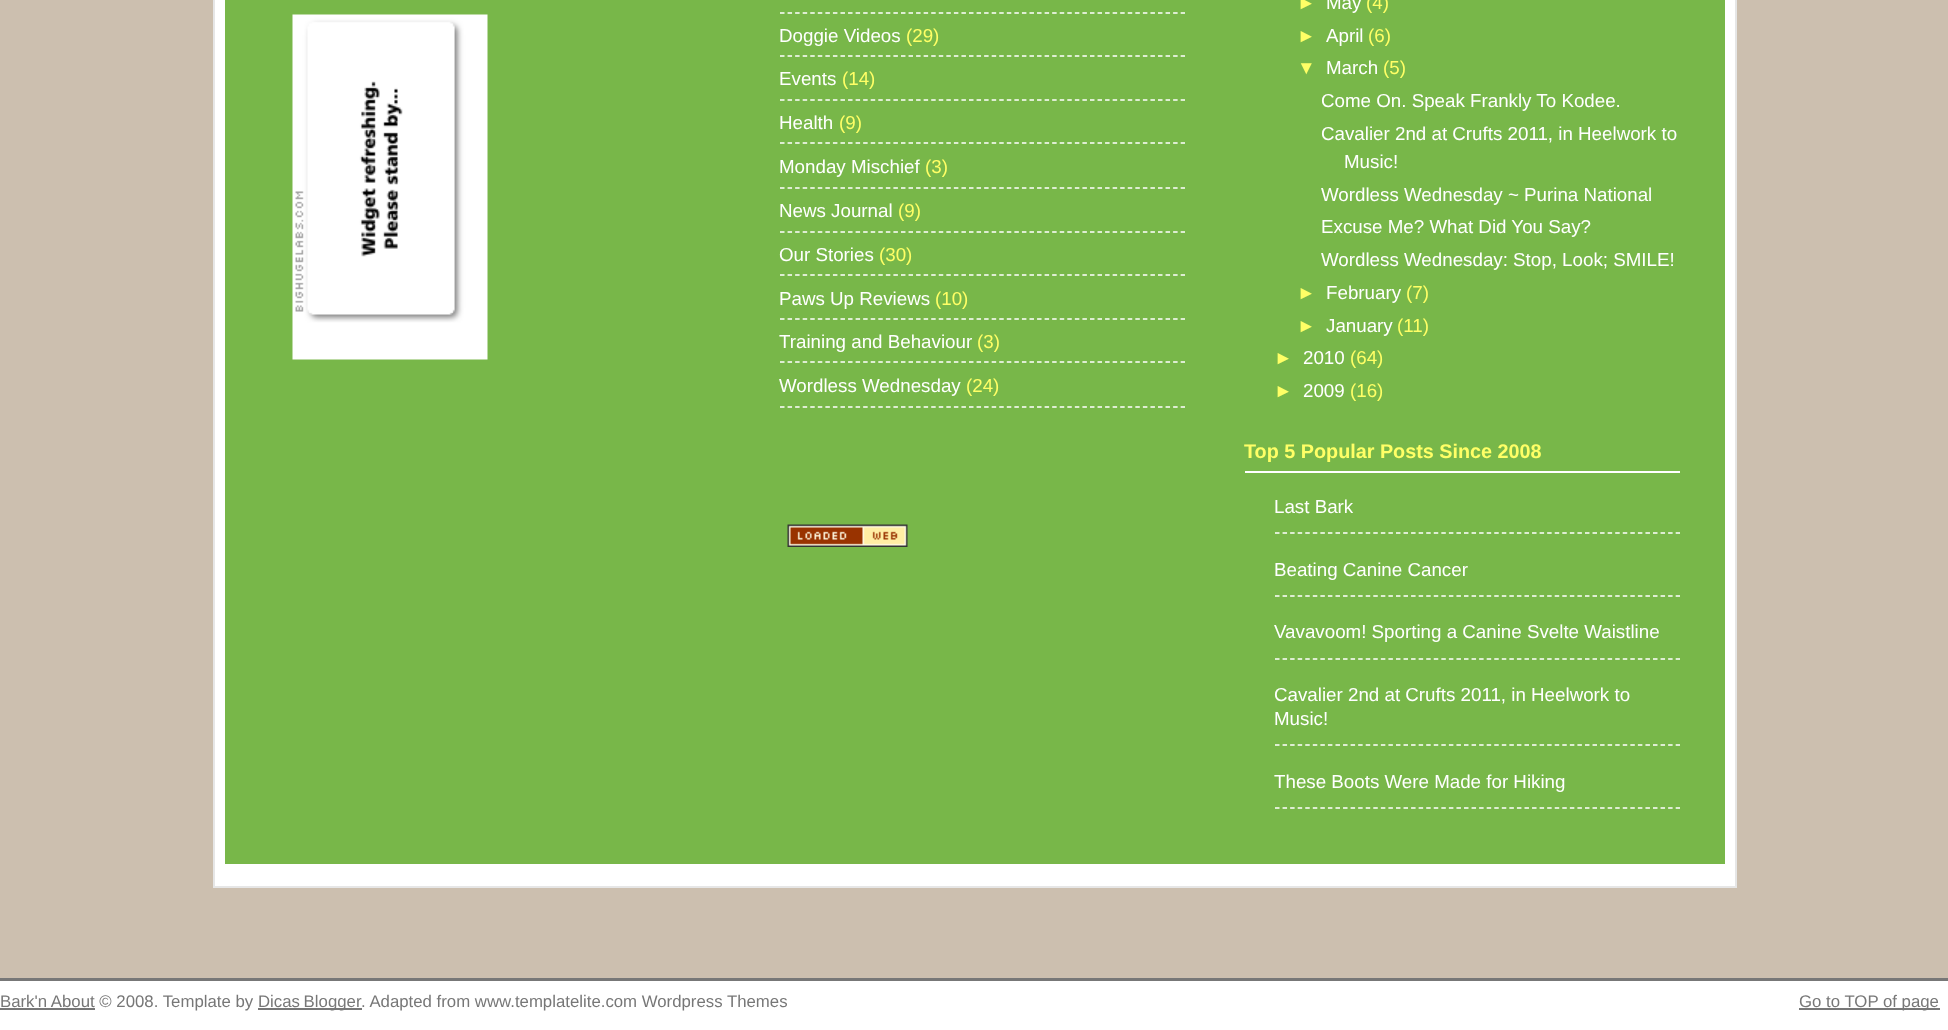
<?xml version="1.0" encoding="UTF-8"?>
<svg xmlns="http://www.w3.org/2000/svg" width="1948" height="1030">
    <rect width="100%" height="100%" fill="#CCBFAF"/>
    <rect x="214" y="-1" width="1522" height="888" fill="#FFFFFF" stroke="#E6E6E6" stroke-width="2"/>
    <rect x="225" y="0" width="1500" height="864" fill="#78B749"/>
    <image x="292" y="14" width="196" height="346" href="img_01.png"/>
    <path d="M 780 13 H 1185" fill="none" stroke="#FFFFFF" stroke-width="1.5" stroke-dasharray="4.5 3.06"/>
    <path d="M 780 56 H 1185" fill="none" stroke="#FFFFFF" stroke-width="1.5" stroke-dasharray="4.5 3.06"/>
    <text x="779" y="42" font-family="Liberation Sans" font-size="18.75" fill="#FFFFFF">Doggie Videos</text>
    <text x="906" y="42" font-family="Liberation Sans" font-size="18.75" fill="#FFFF66">(29)</text>
    <path d="M 780 100 H 1185" fill="none" stroke="#FFFFFF" stroke-width="1.5" stroke-dasharray="4.5 3.06"/>
    <text x="779" y="85" font-family="Liberation Sans" font-size="18.75" fill="#FFFFFF">Events</text>
    <text x="842" y="85" font-family="Liberation Sans" font-size="18.75" fill="#FFFF66">(14)</text>
    <path d="M 780 143 H 1185" fill="none" stroke="#FFFFFF" stroke-width="1.5" stroke-dasharray="4.5 3.06"/>
    <text x="779" y="129" font-family="Liberation Sans" font-size="18.75" fill="#FFFFFF">Health</text>
    <text x="839" y="129" font-family="Liberation Sans" font-size="18.75" fill="#FFFF66">(9)</text>
    <path d="M 780 188 H 1185" fill="none" stroke="#FFFFFF" stroke-width="1.5" stroke-dasharray="4.5 3.06"/>
    <text x="779" y="173" font-family="Liberation Sans" font-size="18.75" fill="#FFFFFF">Monday Mischief</text>
    <text x="925" y="173" font-family="Liberation Sans" font-size="18.75" fill="#FFFF66">(3)</text>
    <path d="M 780 232 H 1185" fill="none" stroke="#FFFFFF" stroke-width="1.5" stroke-dasharray="4.5 3.06"/>
    <text x="779" y="217" font-family="Liberation Sans" font-size="18.75" fill="#FFFFFF">News Journal</text>
    <text x="898" y="217" font-family="Liberation Sans" font-size="18.75" fill="#FFFF66">(9)</text>
    <path d="M 780 275 H 1185" fill="none" stroke="#FFFFFF" stroke-width="1.5" stroke-dasharray="4.5 3.06"/>
    <text x="779" y="261" font-family="Liberation Sans" font-size="18.75" fill="#FFFFFF">Our Stories</text>
    <text x="879" y="261" font-family="Liberation Sans" font-size="18.75" fill="#FFFF66">(30)</text>
    <path d="M 780 319 H 1185" fill="none" stroke="#FFFFFF" stroke-width="1.5" stroke-dasharray="4.5 3.06"/>
    <text x="779" y="305" font-family="Liberation Sans" font-size="18.75" fill="#FFFFFF">Paws Up Reviews</text>
    <text x="935" y="305" font-family="Liberation Sans" font-size="18.75" fill="#FFFF66">(10)</text>
    <path d="M 780 362 H 1185" fill="none" stroke="#FFFFFF" stroke-width="1.5" stroke-dasharray="4.5 3.06"/>
    <text x="779" y="348" font-family="Liberation Sans" font-size="18.75" fill="#FFFFFF">Training and Behaviour</text>
    <text x="977" y="348" font-family="Liberation Sans" font-size="18.75" fill="#FFFF66">(3)</text>
    <path d="M 780 407 H 1185" fill="none" stroke="#FFFFFF" stroke-width="1.5" stroke-dasharray="4.5 3.06"/>
    <text x="779" y="392" font-family="Liberation Sans" font-size="18.75" fill="#FFFFFF">Wordless Wednesday</text>
    <text x="966" y="392" font-family="Liberation Sans" font-size="18.75" fill="#FFFF66">(24)</text>
    <image x="787" y="524" width="121" height="23" href="img_02.png"/>
    <text x="1297" y="9" font-family="Liberation Sans" font-size="18.75" fill="#FFFF66">►</text>
    <text x="1326" y="9" font-family="Liberation Sans" font-size="18.75" fill="#FFFFFF">May</text>
    <text x="1366" y="9" font-family="Liberation Sans" font-size="18.75" fill="#FFFF66">(4)</text>
    <text x="1297" y="42" font-family="Liberation Sans" font-size="18.75" fill="#FFFF66">►</text>
    <text x="1326" y="42" font-family="Liberation Sans" font-size="18.75" fill="#FFFFFF">April</text>
    <text x="1368" y="42" font-family="Liberation Sans" font-size="18.75" fill="#FFFF66">(6)</text>
    <text x="1297" y="74" font-family="Liberation Sans" font-size="18.75" fill="#FFFF66">▼</text>
    <text x="1326" y="74" font-family="Liberation Sans" font-size="18.75" fill="#FFFFFF">March</text>
    <text x="1383" y="74" font-family="Liberation Sans" font-size="18.75" fill="#FFFF66">(5)</text>
    <text font-family="Liberation Sans" font-size="18.75" fill="#FFFFFF">
        <tspan x="1321" y="107">Come On. Speak Frankly To Kodee.</tspan>
        <tspan x="1321" y="140">Cavalier 2nd at Crufts 2011, in Heelwork to</tspan>
    </text>
    <text x="1344" y="168" font-family="Liberation Sans" font-size="18.75" fill="#FFFFFF">Music!</text>
    <text font-family="Liberation Sans" font-size="18.75" fill="#FFFFFF">
        <tspan x="1321" y="201">Wordless Wednesday ~ Purina National</tspan>
        <tspan x="1321" y="233">Excuse Me? What Did You Say?</tspan>
        <tspan x="1321" y="266">Wordless Wednesday: Stop, Look; SMILE!</tspan>
    </text>
    <text x="1297" y="299" font-family="Liberation Sans" font-size="18.75" fill="#FFFF66">►</text>
    <text x="1326" y="299" font-family="Liberation Sans" font-size="18.75" fill="#FFFFFF">February</text>
    <text x="1406" y="299" font-family="Liberation Sans" font-size="18.75" fill="#FFFF66">(7)</text>
    <text x="1297" y="332" font-family="Liberation Sans" font-size="18.75" fill="#FFFF66">►</text>
    <text x="1326" y="332" font-family="Liberation Sans" font-size="18.75" fill="#FFFFFF">January</text>
    <text x="1397" y="332" font-family="Liberation Sans" font-size="18.75" fill="#FFFF66">(11)</text>
    <text x="1274" y="364" font-family="Liberation Sans" font-size="18.75" fill="#FFFF66">►</text>
    <text x="1303" y="364" font-family="Liberation Sans" font-size="18.75" fill="#FFFFFF">2010</text>
    <text x="1350" y="364" font-family="Liberation Sans" font-size="18.75" fill="#FFFF66">(64)</text>
    <text x="1274" y="397" font-family="Liberation Sans" font-size="18.75" fill="#FFFF66">►</text>
    <text x="1303" y="397" font-family="Liberation Sans" font-size="18.75" fill="#FFFFFF">2009</text>
    <text x="1350" y="397" font-family="Liberation Sans" font-size="18.75" fill="#FFFF66">(16)</text>
    <rect x="1245" y="471" width="435" height="2" fill="#FFFFFF"/>
    <text x="1244" y="458" font-family="Liberation Sans" font-size="19.8" font-weight="700" fill="#FFFF66">Top 5 Popular Posts Since 2008</text>
    <path d="M 1275 533 H 1680" fill="none" stroke="#FFFFFF" stroke-width="1.5" stroke-dasharray="4.5 3.06"/>
    <text x="1274" y="513" font-family="Liberation Sans" font-size="18.75" fill="#FFFFFF">Last Bark</text>
    <path d="M 1275 596 H 1680" fill="none" stroke="#FFFFFF" stroke-width="1.5" stroke-dasharray="4.5 3.06"/>
    <text x="1274" y="576" font-family="Liberation Sans" font-size="18.75" fill="#FFFFFF">Beating Canine Cancer</text>
    <path d="M 1275 659 H 1680" fill="none" stroke="#FFFFFF" stroke-width="1.5" stroke-dasharray="4.5 3.06"/>
    <text x="1274" y="638" font-family="Liberation Sans" font-size="18.75" fill="#FFFFFF">Vavavoom! Sporting a Canine Svelte Waistline</text>
    <path d="M 1275 745 H 1680" fill="none" stroke="#FFFFFF" stroke-width="1.5" stroke-dasharray="4.5 3.06"/>
    <text font-family="Liberation Sans" font-size="18.75" fill="#FFFFFF">
        <tspan x="1274" y="701">Cavalier 2nd at Crufts 2011, in Heelwork to</tspan>
        <tspan x="1274" y="725">Music!</tspan>
    </text>
    <path d="M 1275 808 H 1680" fill="none" stroke="#FFFFFF" stroke-width="1.5" stroke-dasharray="4.5 3.06"/>
    <text x="1274" y="788" font-family="Liberation Sans" font-size="18.75" fill="#FFFFFF">These Boots Were Made for Hiking</text>
    <rect x="0" y="978" width="1948" height="3" fill="#777777"/>
    <rect x="0" y="981" width="1948" height="49" fill="#FFFFFF"/>
    <rect x="0" y="1008" width="95" height="2" fill="#777777"/>
    <text x="0" y="1007" font-family="Liberation Sans" font-size="16.8" fill="#777777">Bark'n About © 2008. Template by</text>
    <rect x="258" y="1008" width="104" height="2" fill="#777777"/>
    <text x="258" y="1007" word-spacing="-1" font-family="Liberation Sans" font-size="16.8" fill="#777777">Dicas Blogger</text>
    <text x="361" y="1007" font-family="Liberation Sans" font-size="16.8" fill="#777777">. Adapted from www.templatelite.com Wordpress Themes</text>
    <rect x="1799" y="1008" width="141" height="2" fill="#777777"/>
    <text x="1799" y="1007" font-family="Liberation Sans" font-size="16.8" fill="#777777">Go to TOP of page</text>
</svg>
